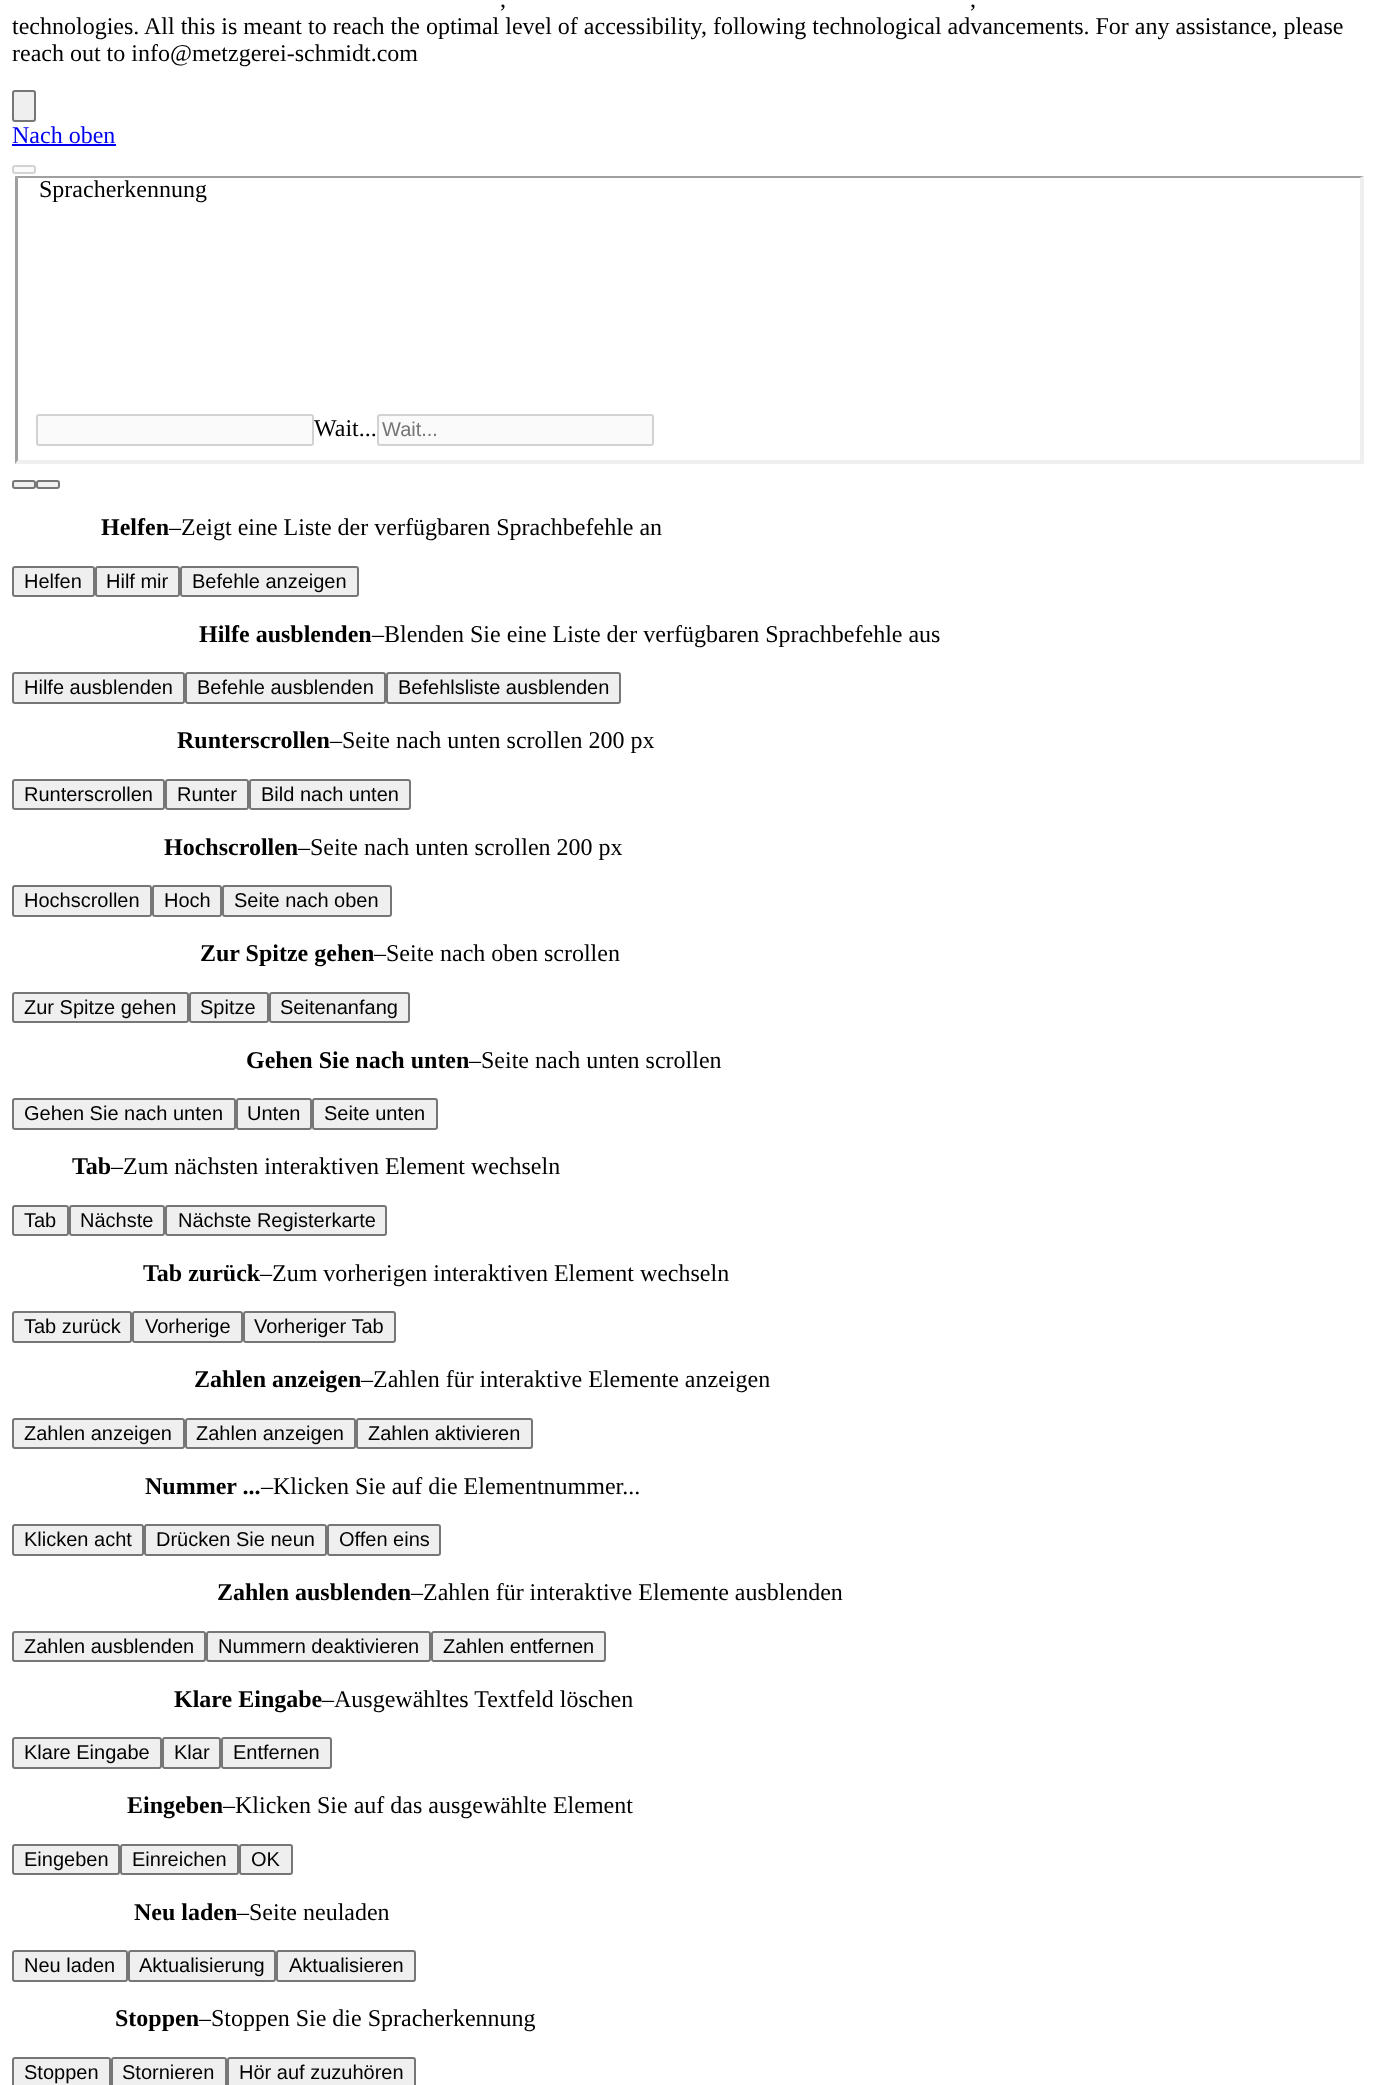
<?xml version="1.0" encoding="UTF-8"?>
<svg xmlns="http://www.w3.org/2000/svg" width="1378" height="2085">
    <rect width="100%" height="100%" fill="#FFFFFF"/>
    <text x="500" y="7" font-family="Liberation Serif" font-size="24" fill="#000000">,</text>
    <text x="970" y="7" font-family="Liberation Serif" font-size="24" fill="#000000">,</text>
    <text font-family="Liberation Serif" font-size="24" fill="#000000">
        <tspan x="12" y="34">technologies. All this is meant to reach the optimal level of accessibility, following technological advancements. For any assistance, please</tspan>
        <tspan x="12" y="61">reach out to info@metzgerei-schmidt.com</tspan>
    </text>
    <rect x="13" y="91" width="22" height="30" rx="2" fill="#EFEFEF" stroke="#767676" stroke-width="2"/>
    <text x="12" y="143" font-family="Liberation Serif" font-size="24" fill="#0000EE">Nach oben</text>
    <rect x="12" y="144" width="104" height="2" fill="#0000EE"/>
    <rect x="13" y="166" width="22" height="7" rx="2" fill="#FAFAFA" stroke="#D3D3D3" stroke-width="2"/>
    <path d="M 15 176 H 1364 L 1360 178 H 18 Z" fill="#9F9F9F"/>
    <path d="M 1364 176 V 464 L 1360 460 V 178 Z" fill="#EFEFEF"/>
    <path d="M 1364 464 H 15 L 18 460 H 1360 Z" fill="#EFEFEF"/>
    <path d="M 15 464 V 176 L 18 178 V 460 Z" fill="#9F9F9F"/>
    <text x="39" y="197" font-family="Liberation Serif" font-size="24" fill="#000000">Spracherkennung</text>
    <rect x="37" y="415" width="276" height="30" rx="2" fill="#FAFAFA" stroke="#D2D2D2" stroke-width="2"/>
    <text x="314" y="436" font-family="Liberation Serif" font-size="24" fill="#000000">Wait...</text>
    <rect x="378" y="415" width="275" height="30" rx="2" fill="#FAFAFA" stroke="#D2D2D2" stroke-width="2"/>
    <text x="382" y="436" font-family="Liberation Sans" font-size="20" fill="#757575">Wait...</text>
    <rect x="13" y="481" width="22" height="7" rx="2" fill="#EFEFEF" stroke="#767676" stroke-width="2"/>
    <rect x="37" y="481" width="22" height="7" rx="2" fill="#EFEFEF" stroke="#767676" stroke-width="2"/>
    <text x="101" y="535" font-family="Liberation Serif" font-size="24" font-weight="700" fill="#000000">Helfen</text>
    <text x="169" y="535" font-family="Liberation Serif" font-size="24" fill="#000000">–Zeigt eine Liste der verfügbaren Sprachbefehle an</text>
    <rect x="13" y="567" width="81" height="29" rx="2" fill="#EFEFEF" stroke="#767676" stroke-width="2"/>
    <text x="24" y="588" font-family="Liberation Sans" font-size="20" fill="#000000">Helfen</text>
    <rect x="96" y="567" width="83" height="29" rx="2" fill="#EFEFEF" stroke="#767676" stroke-width="2"/>
    <text x="106" y="588" font-family="Liberation Sans" font-size="20" fill="#000000">Hilf mir</text>
    <rect x="181" y="567" width="177" height="29" rx="2" fill="#EFEFEF" stroke="#767676" stroke-width="2"/>
    <text x="192" y="588" font-family="Liberation Sans" font-size="20" fill="#000000">Befehle anzeigen</text>
    <text x="199" y="642" font-family="Liberation Serif" font-size="24" font-weight="700" fill="#000000">Hilfe ausblenden</text>
    <text x="372" y="642" font-family="Liberation Serif" font-size="24" fill="#000000">–Blenden Sie eine Liste der verfügbaren Sprachbefehle aus</text>
    <rect x="13" y="673" width="171" height="30" rx="2" fill="#EFEFEF" stroke="#767676" stroke-width="2"/>
    <text x="24" y="694" font-family="Liberation Sans" font-size="20" fill="#000000">Hilfe ausblenden</text>
    <rect x="186" y="673" width="199" height="30" rx="2" fill="#EFEFEF" stroke="#767676" stroke-width="2"/>
    <text x="197" y="694" font-family="Liberation Sans" font-size="20" fill="#000000">Befehle ausblenden</text>
    <rect x="387" y="673" width="233" height="30" rx="2" fill="#EFEFEF" stroke="#767676" stroke-width="2"/>
    <text x="398" y="694" font-family="Liberation Sans" font-size="20" fill="#000000">Befehlsliste ausblenden</text>
    <text x="177" y="748" font-family="Liberation Serif" font-size="24" font-weight="700" fill="#000000">Runterscrollen</text>
    <text x="330" y="748" font-family="Liberation Serif" font-size="24" fill="#000000">–Seite nach unten scrollen 200 px</text>
    <rect x="13" y="780" width="151" height="29" rx="2" fill="#EFEFEF" stroke="#767676" stroke-width="2"/>
    <text x="24" y="801" font-family="Liberation Sans" font-size="20" fill="#000000">Runterscrollen</text>
    <rect x="166" y="780" width="82" height="29" rx="2" fill="#EFEFEF" stroke="#767676" stroke-width="2"/>
    <text x="177" y="801" font-family="Liberation Sans" font-size="20" fill="#000000">Runter</text>
    <rect x="250" y="780" width="160" height="29" rx="2" fill="#EFEFEF" stroke="#767676" stroke-width="2"/>
    <text x="261" y="801" font-family="Liberation Sans" font-size="20" fill="#000000">Bild nach unten</text>
    <text x="164" y="855" font-family="Liberation Serif" font-size="24" font-weight="700" fill="#000000">Hochscrollen</text>
    <text x="298" y="855" font-family="Liberation Serif" font-size="24" fill="#000000">–Seite nach unten scrollen 200 px</text>
    <rect x="13" y="886" width="138" height="30" rx="2" fill="#EFEFEF" stroke="#767676" stroke-width="2"/>
    <text x="24" y="907" font-family="Liberation Sans" font-size="20" fill="#000000">Hochscrollen</text>
    <rect x="153" y="886" width="68" height="30" rx="2" fill="#EFEFEF" stroke="#767676" stroke-width="2"/>
    <text x="164" y="907" font-family="Liberation Sans" font-size="20" fill="#000000">Hoch</text>
    <rect x="223" y="886" width="168" height="30" rx="2" fill="#EFEFEF" stroke="#767676" stroke-width="2"/>
    <text x="234" y="907" font-family="Liberation Sans" font-size="20" fill="#000000">Seite nach oben</text>
    <text x="200" y="961" font-family="Liberation Serif" font-size="24" font-weight="700" fill="#000000">Zur Spitze gehen</text>
    <text x="374" y="961" font-family="Liberation Serif" font-size="24" fill="#000000">–Seite nach oben scrollen</text>
    <rect x="13" y="993" width="175" height="29" rx="2" fill="#EFEFEF" stroke="#767676" stroke-width="2"/>
    <text x="24" y="1014" font-family="Liberation Sans" font-size="20" fill="#000000">Zur Spitze gehen</text>
    <rect x="190" y="993" width="78" height="29" rx="2" fill="#EFEFEF" stroke="#767676" stroke-width="2"/>
    <text x="200" y="1014" font-family="Liberation Sans" font-size="20" fill="#000000">Spitze</text>
    <rect x="270" y="993" width="139" height="29" rx="2" fill="#EFEFEF" stroke="#767676" stroke-width="2"/>
    <text x="280" y="1014" font-family="Liberation Sans" font-size="20" fill="#000000">Seitenanfang</text>
    <text x="246" y="1068" font-family="Liberation Serif" font-size="24" font-weight="700" fill="#000000">Gehen Sie nach unten</text>
    <text x="469" y="1068" font-family="Liberation Serif" font-size="24" fill="#000000">–Seite nach unten scrollen</text>
    <rect x="13" y="1099" width="222" height="30" rx="2" fill="#EFEFEF" stroke="#767676" stroke-width="2"/>
    <text x="24" y="1120" font-family="Liberation Sans" font-size="20" fill="#000000">Gehen Sie nach unten</text>
    <rect x="237" y="1099" width="74" height="30" rx="2" fill="#EFEFEF" stroke="#767676" stroke-width="2"/>
    <text x="247" y="1120" font-family="Liberation Sans" font-size="20" fill="#000000">Unten</text>
    <rect x="313" y="1099" width="124" height="30" rx="2" fill="#EFEFEF" stroke="#767676" stroke-width="2"/>
    <text x="324" y="1120" font-family="Liberation Sans" font-size="20" fill="#000000">Seite unten</text>
    <text x="72" y="1174" font-family="Liberation Serif" font-size="24" font-weight="700" fill="#000000">Tab</text>
    <text x="111" y="1174" font-family="Liberation Serif" font-size="24" fill="#000000">–Zum nächsten interaktiven Element wechseln</text>
    <rect x="13" y="1206" width="55" height="29" rx="2" fill="#EFEFEF" stroke="#767676" stroke-width="2"/>
    <text x="24" y="1227" font-family="Liberation Sans" font-size="20" fill="#000000">Tab</text>
    <rect x="70" y="1206" width="94" height="29" rx="2" fill="#EFEFEF" stroke="#767676" stroke-width="2"/>
    <text x="80" y="1227" font-family="Liberation Sans" font-size="20" fill="#000000">Nächste</text>
    <rect x="166" y="1206" width="220" height="29" rx="2" fill="#EFEFEF" stroke="#767676" stroke-width="2"/>
    <text x="178" y="1227" font-family="Liberation Sans" font-size="20" fill="#000000">Nächste Registerkarte</text>
    <text x="143" y="1281" font-family="Liberation Serif" font-size="24" font-weight="700" fill="#000000">Tab zurück</text>
    <text x="260" y="1281" font-family="Liberation Serif" font-size="24" fill="#000000">–Zum vorherigen interaktiven Element wechseln</text>
    <rect x="13" y="1312" width="118" height="30" rx="2" fill="#EFEFEF" stroke="#767676" stroke-width="2"/>
    <text x="24" y="1333" font-family="Liberation Sans" font-size="20" fill="#000000">Tab zurück</text>
    <rect x="133" y="1312" width="109" height="30" rx="2" fill="#EFEFEF" stroke="#767676" stroke-width="2"/>
    <text x="145" y="1333" font-family="Liberation Sans" font-size="20" fill="#000000">Vorherige</text>
    <rect x="244" y="1312" width="151" height="30" rx="2" fill="#EFEFEF" stroke="#767676" stroke-width="2"/>
    <text x="254" y="1333" font-family="Liberation Sans" font-size="20" fill="#000000">Vorheriger Tab</text>
    <text x="194" y="1387" font-family="Liberation Serif" font-size="24" font-weight="700" fill="#000000">Zahlen anzeigen</text>
    <text x="361" y="1387" font-family="Liberation Serif" font-size="24" fill="#000000">–Zahlen für interaktive Elemente anzeigen</text>
    <rect x="13" y="1419" width="171" height="29" rx="2" fill="#EFEFEF" stroke="#767676" stroke-width="2"/>
    <text x="24" y="1440" font-family="Liberation Sans" font-size="20" fill="#000000">Zahlen anzeigen</text>
    <rect x="186" y="1419" width="169" height="29" rx="2" fill="#EFEFEF" stroke="#767676" stroke-width="2"/>
    <text x="196" y="1440" font-family="Liberation Sans" font-size="20" fill="#000000">Zahlen anzeigen</text>
    <rect x="357" y="1419" width="175" height="29" rx="2" fill="#EFEFEF" stroke="#767676" stroke-width="2"/>
    <text x="368" y="1440" font-family="Liberation Sans" font-size="20" fill="#000000">Zahlen aktivieren</text>
    <text x="145" y="1494" font-family="Liberation Serif" font-size="24" font-weight="700" fill="#000000">Nummer ...</text>
    <text x="261" y="1494" font-family="Liberation Serif" font-size="24" fill="#000000">–Klicken Sie auf die Elementnummer...</text>
    <rect x="13" y="1525" width="130" height="30" rx="2" fill="#EFEFEF" stroke="#767676" stroke-width="2"/>
    <text x="24" y="1546" font-family="Liberation Sans" font-size="20" fill="#000000">Klicken acht</text>
    <rect x="145" y="1525" width="181" height="30" rx="2" fill="#EFEFEF" stroke="#767676" stroke-width="2"/>
    <text x="156" y="1546" font-family="Liberation Sans" font-size="20" fill="#000000">Drücken Sie neun</text>
    <rect x="328" y="1525" width="112" height="30" rx="2" fill="#EFEFEF" stroke="#767676" stroke-width="2"/>
    <text x="339" y="1546" font-family="Liberation Sans" font-size="20" fill="#000000">Offen eins</text>
    <text x="217" y="1600" font-family="Liberation Serif" font-size="24" font-weight="700" fill="#000000">Zahlen ausblenden</text>
    <text x="411" y="1600" font-family="Liberation Serif" font-size="24" fill="#000000">–Zahlen für interaktive Elemente ausblenden</text>
    <rect x="13" y="1632" width="192" height="29" rx="2" fill="#EFEFEF" stroke="#767676" stroke-width="2"/>
    <text x="24" y="1653" font-family="Liberation Sans" font-size="20" fill="#000000">Zahlen ausblenden</text>
    <rect x="207" y="1632" width="223" height="29" rx="2" fill="#EFEFEF" stroke="#767676" stroke-width="2"/>
    <text x="218" y="1653" font-family="Liberation Sans" font-size="20" fill="#000000">Nummern deaktivieren</text>
    <rect x="432" y="1632" width="173" height="29" rx="2" fill="#EFEFEF" stroke="#767676" stroke-width="2"/>
    <text x="443" y="1653" font-family="Liberation Sans" font-size="20" fill="#000000">Zahlen entfernen</text>
    <text x="174" y="1707" font-family="Liberation Serif" font-size="24" font-weight="700" fill="#000000">Klare Eingabe</text>
    <text x="322" y="1707" font-family="Liberation Serif" font-size="24" fill="#000000">–Ausgewähltes Textfeld löschen</text>
    <rect x="13" y="1738" width="148" height="30" rx="2" fill="#EFEFEF" stroke="#767676" stroke-width="2"/>
    <text x="24" y="1759" font-family="Liberation Sans" font-size="20" fill="#000000">Klare Eingabe</text>
    <rect x="163" y="1738" width="57" height="30" rx="2" fill="#EFEFEF" stroke="#767676" stroke-width="2"/>
    <text x="174" y="1759" font-family="Liberation Sans" font-size="20" fill="#000000">Klar</text>
    <rect x="222" y="1738" width="109" height="30" rx="2" fill="#EFEFEF" stroke="#767676" stroke-width="2"/>
    <text x="233" y="1759" font-family="Liberation Sans" font-size="20" fill="#000000">Entfernen</text>
    <text x="127" y="1813" font-family="Liberation Serif" font-size="24" font-weight="700" fill="#000000">Eingeben</text>
    <text x="223" y="1813" font-family="Liberation Serif" font-size="24" fill="#000000">–Klicken Sie auf das ausgewählte Element</text>
    <rect x="13" y="1845" width="106" height="29" rx="2" fill="#EFEFEF" stroke="#767676" stroke-width="2"/>
    <text x="24" y="1866" font-family="Liberation Sans" font-size="20" fill="#000000">Eingeben</text>
    <rect x="121" y="1845" width="117" height="29" rx="2" fill="#EFEFEF" stroke="#767676" stroke-width="2"/>
    <text x="132" y="1866" font-family="Liberation Sans" font-size="20" fill="#000000">Einreichen</text>
    <rect x="240" y="1845" width="52" height="29" rx="2" fill="#EFEFEF" stroke="#767676" stroke-width="2"/>
    <text x="251" y="1866" font-family="Liberation Sans" font-size="20" fill="#000000">OK</text>
    <text x="134" y="1920" font-family="Liberation Serif" font-size="24" font-weight="700" fill="#000000">Neu laden</text>
    <text x="237" y="1920" font-family="Liberation Serif" font-size="24" fill="#000000">–Seite neuladen</text>
    <rect x="13" y="1951" width="114" height="30" rx="2" fill="#EFEFEF" stroke="#767676" stroke-width="2"/>
    <text x="24" y="1972" font-family="Liberation Sans" font-size="20" fill="#000000">Neu laden</text>
    <rect x="129" y="1951" width="146" height="30" rx="2" fill="#EFEFEF" stroke="#767676" stroke-width="2"/>
    <text x="139" y="1972" font-family="Liberation Sans" font-size="20" fill="#000000">Aktualisierung</text>
    <rect x="277" y="1951" width="138" height="30" rx="2" fill="#EFEFEF" stroke="#767676" stroke-width="2"/>
    <text x="289" y="1972" font-family="Liberation Sans" font-size="20" fill="#000000">Aktualisieren</text>
    <text x="115" y="2026" font-family="Liberation Serif" font-size="24" font-weight="700" fill="#000000">Stoppen</text>
    <text x="199" y="2026" font-family="Liberation Serif" font-size="24" fill="#000000">–Stoppen Sie die Spracherkennung</text>
    <rect x="13" y="2058" width="97" height="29" rx="2" fill="#EFEFEF" stroke="#767676" stroke-width="2"/>
    <text x="24" y="2079" font-family="Liberation Sans" font-size="20" fill="#000000">Stoppen</text>
    <rect x="112" y="2058" width="114" height="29" rx="2" fill="#EFEFEF" stroke="#767676" stroke-width="2"/>
    <text x="122" y="2079" font-family="Liberation Sans" font-size="20" fill="#000000">Stornieren</text>
    <rect x="228" y="2058" width="187" height="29" rx="2" fill="#EFEFEF" stroke="#767676" stroke-width="2"/>
    <text x="239" y="2079" font-family="Liberation Sans" font-size="20" fill="#000000">Hör auf zuzuhören</text>
</svg>
